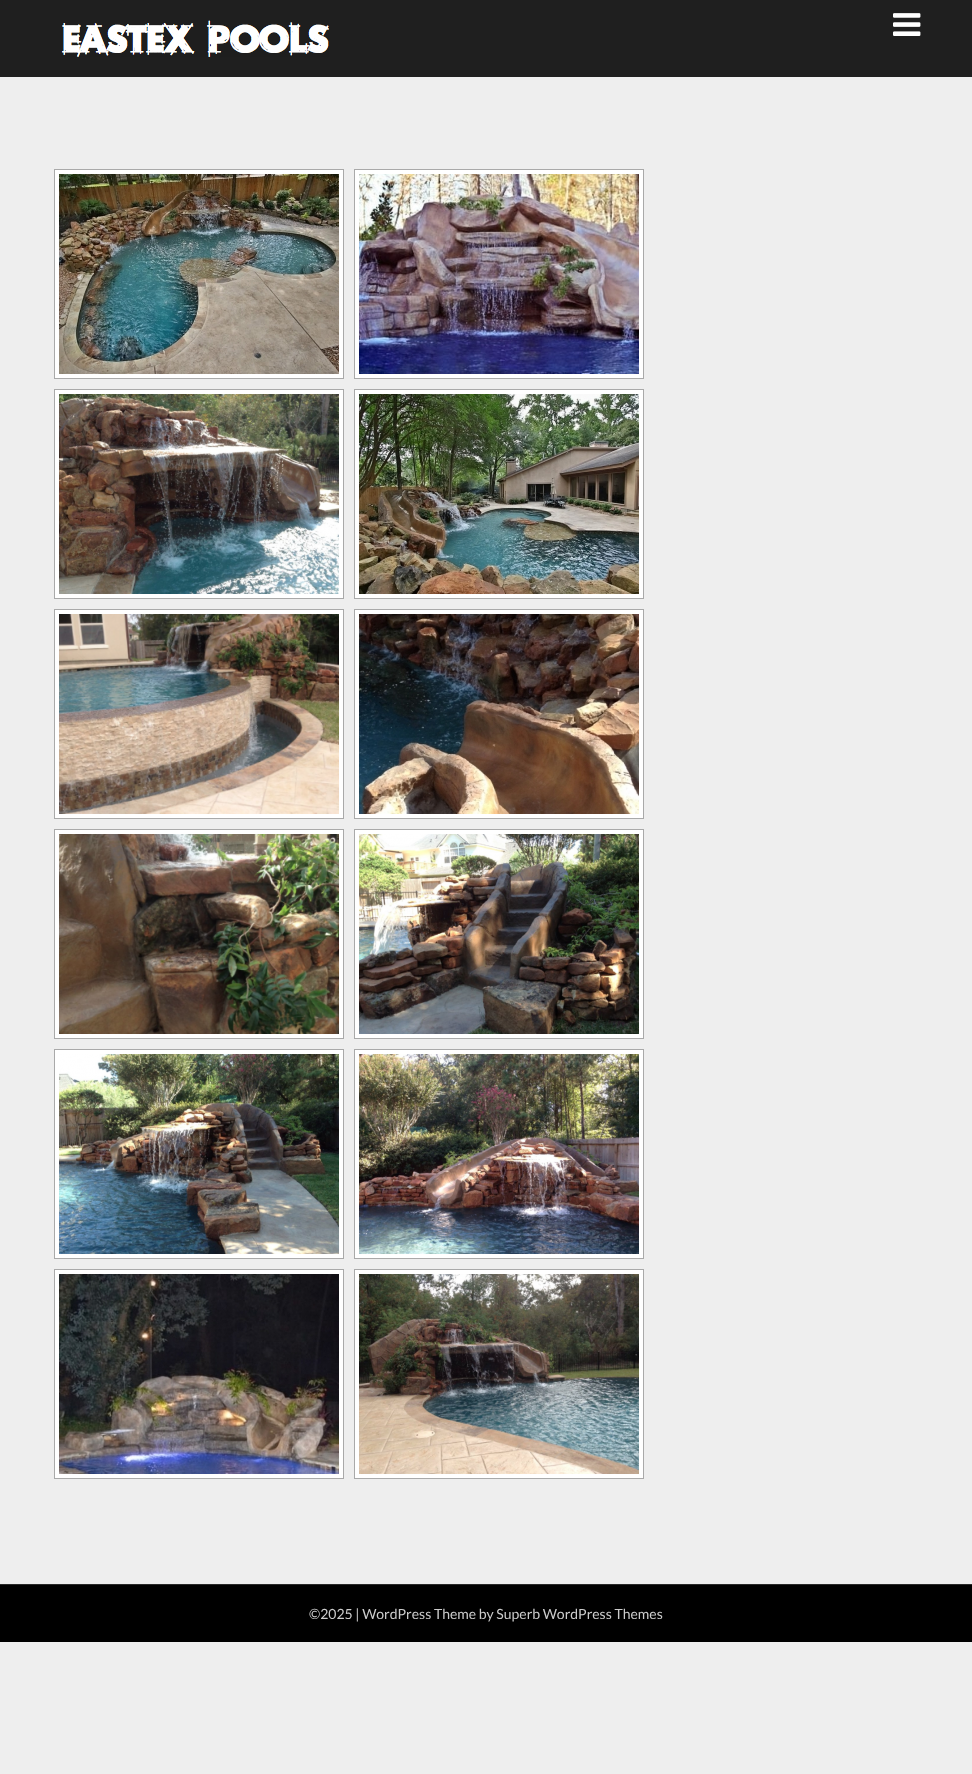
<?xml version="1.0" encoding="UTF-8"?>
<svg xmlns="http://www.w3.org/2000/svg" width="972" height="1774">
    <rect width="100%" height="100%" fill="#EEEEEE"/>
    <rect x="0" y="0" width="972" height="77" fill="#1F1F1F"/>
    <image x="61" y="20" width="268" height="37" href="img_01.png"/>
    <image x="893" y="13" width="28" height="23" href="img_02.png"/>
    <rect x="54.5" y="169.5" width="289" height="209" fill="#FFFFFF" stroke="#A9A9A9"/>
    <image x="59" y="174" width="280" height="200" href="img_03.png"/>
    <rect x="354.5" y="169.5" width="289" height="209" fill="#FFFFFF" stroke="#A9A9A9"/>
    <image x="359" y="174" width="280" height="200" href="img_04.png"/>
    <rect x="54.5" y="389.5" width="289" height="209" fill="#FFFFFF" stroke="#A9A9A9"/>
    <image x="59" y="394" width="280" height="200" href="img_05.png"/>
    <rect x="354.5" y="389.5" width="289" height="209" fill="#FFFFFF" stroke="#A9A9A9"/>
    <image x="359" y="394" width="280" height="200" href="img_06.png"/>
    <rect x="54.5" y="609.5" width="289" height="209" fill="#FFFFFF" stroke="#A9A9A9"/>
    <image x="59" y="614" width="280" height="200" href="img_07.png"/>
    <rect x="354.5" y="609.5" width="289" height="209" fill="#FFFFFF" stroke="#A9A9A9"/>
    <image x="359" y="614" width="280" height="200" href="img_08.png"/>
    <rect x="54.5" y="829.5" width="289" height="209" fill="#FFFFFF" stroke="#A9A9A9"/>
    <image x="59" y="834" width="280" height="200" href="img_09.png"/>
    <rect x="354.5" y="829.5" width="289" height="209" fill="#FFFFFF" stroke="#A9A9A9"/>
    <image x="359" y="834" width="280" height="200" href="img_10.png"/>
    <rect x="54.5" y="1049.5" width="289" height="209" fill="#FFFFFF" stroke="#A9A9A9"/>
    <image x="59" y="1054" width="280" height="200" href="img_11.png"/>
    <rect x="354.5" y="1049.5" width="289" height="209" fill="#FFFFFF" stroke="#A9A9A9"/>
    <image x="359" y="1054" width="280" height="200" href="img_12.png"/>
    <rect x="54.5" y="1269.5" width="289" height="209" fill="#FFFFFF" stroke="#A9A9A9"/>
    <image x="59" y="1274" width="280" height="200" href="img_13.png"/>
    <rect x="354.5" y="1269.5" width="289" height="209" fill="#FFFFFF" stroke="#A9A9A9"/>
    <image x="359" y="1274" width="280" height="200" href="img_14.png"/>
    <rect x="0" y="1585" width="972" height="57" fill="#000000"/>
    <rect x="0" y="1584" width="972" height="1" fill="#292929"/>
    <text x="309" y="1619" font-family="Lato" font-size="14" fill="#CCCCCC">©2025 | WordPress Theme by Superb WordPress Themes</text>
</svg>
